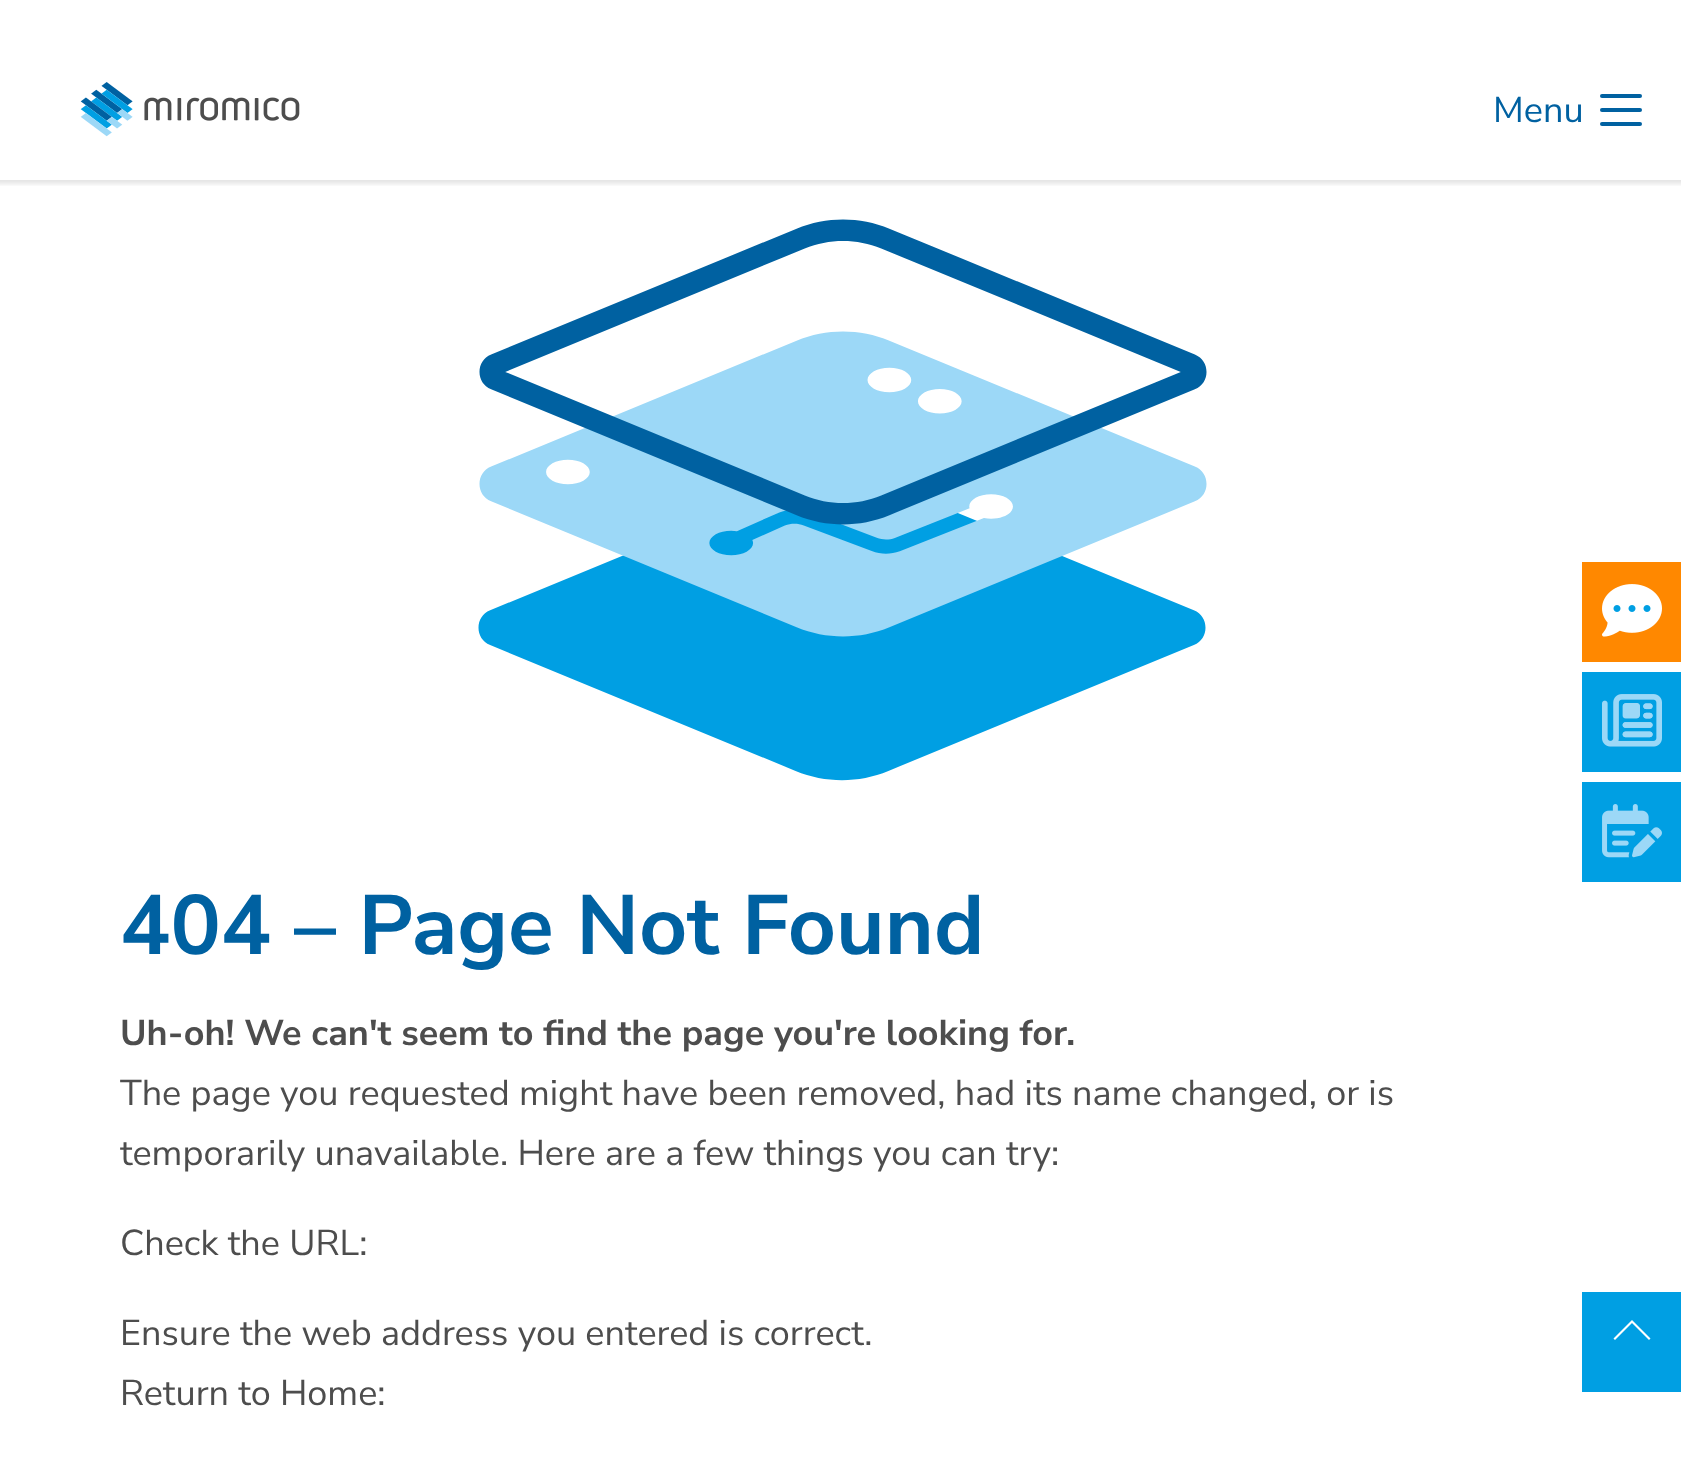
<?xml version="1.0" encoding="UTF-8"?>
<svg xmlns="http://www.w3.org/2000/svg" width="1681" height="1482">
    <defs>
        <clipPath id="clip1"><rect x="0" y="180" width="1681" height="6"/></clipPath>
        <filter id="blur1" x="-50%" y="-200%" width="200%" height="500%"><feGaussianBlur stdDeviation="2"/></filter>
    </defs>
    <rect width="100%" height="100%" fill="#FFFFFF"/>
    <g clip-path="url(#clip1)">
        <rect x="-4" y="-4" width="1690" height="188" fill="#000000" fill-opacity="0.1" filter="url(#blur1)"/>
    </g>
    <image x="80" y="82" width="220" height="55" href="img_01.png"/>
    <text x="1493" y="122" font-family="'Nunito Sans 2'" font-size="36" font-weight="200" fill="#0061A1">Menu</text>
    <rect x="1600" y="108" width="42" height="4" rx="2" fill="#0061A1"/>
    <rect x="1600" y="94" width="42" height="4" rx="2" fill="#0061A1"/>
    <rect x="1600" y="122" width="42" height="4" rx="2" fill="#0061A1"/>
    <rect x="1582" y="562" width="99" height="100" fill="#FF8800"/>
    <image x="1602" y="584" width="60" height="53" href="img_02.png"/>
    <rect x="1582" y="672" width="99" height="100" fill="#009FE3"/>
    <image x="1602" y="694" width="60" height="53" href="img_03.png"/>
    <rect x="1582" y="782" width="99" height="100" fill="#009FE3"/>
    <image x="1602" y="804" width="60" height="54" href="img_04.png"/>
    <image x="478" y="219" width="729" height="562" href="img_05.png"/>
    <text x="120" y="954" font-family="Nunito Sans" font-size="84" font-weight="200" fill="#0061A1">404 – Page Not Found</text>
    <text x="120" y="1045" font-family="Nunito Sans" font-size="36" font-weight="200" fill="#4D4D4D">Uh-oh! We can't seem to find the page you're looking for.</text>
    <text font-family="'Nunito Sans 2'" font-size="36" font-weight="200" fill="#4D4D4D">
        <tspan x="120" y="1105">The page you requested might have been removed, had its name changed, or is</tspan>
        <tspan x="120" y="1165">temporarily unavailable. Here are a few things you can try:</tspan>
    </text>
    <text x="120" y="1255" font-family="'Nunito Sans 2'" font-size="36" font-weight="200" fill="#4D4D4D">Check the URL:</text>
    <text font-family="'Nunito Sans 2'" font-size="36" font-weight="200" fill="#4D4D4D">
        <tspan x="120" y="1345">Ensure the web address you entered is correct.</tspan>
        <tspan x="120" y="1405">Return to Home:</tspan>
    </text>
    <rect x="1582" y="1292" width="99" height="100" fill="#009FE3"/>
    <path d="M 1650.5 1338.5 L 1649 1340 L 1632 1323 L 1615 1340 L 1613.5 1338.5 L 1632 1320 Z" fill="#FFFFFF"/>
</svg>
